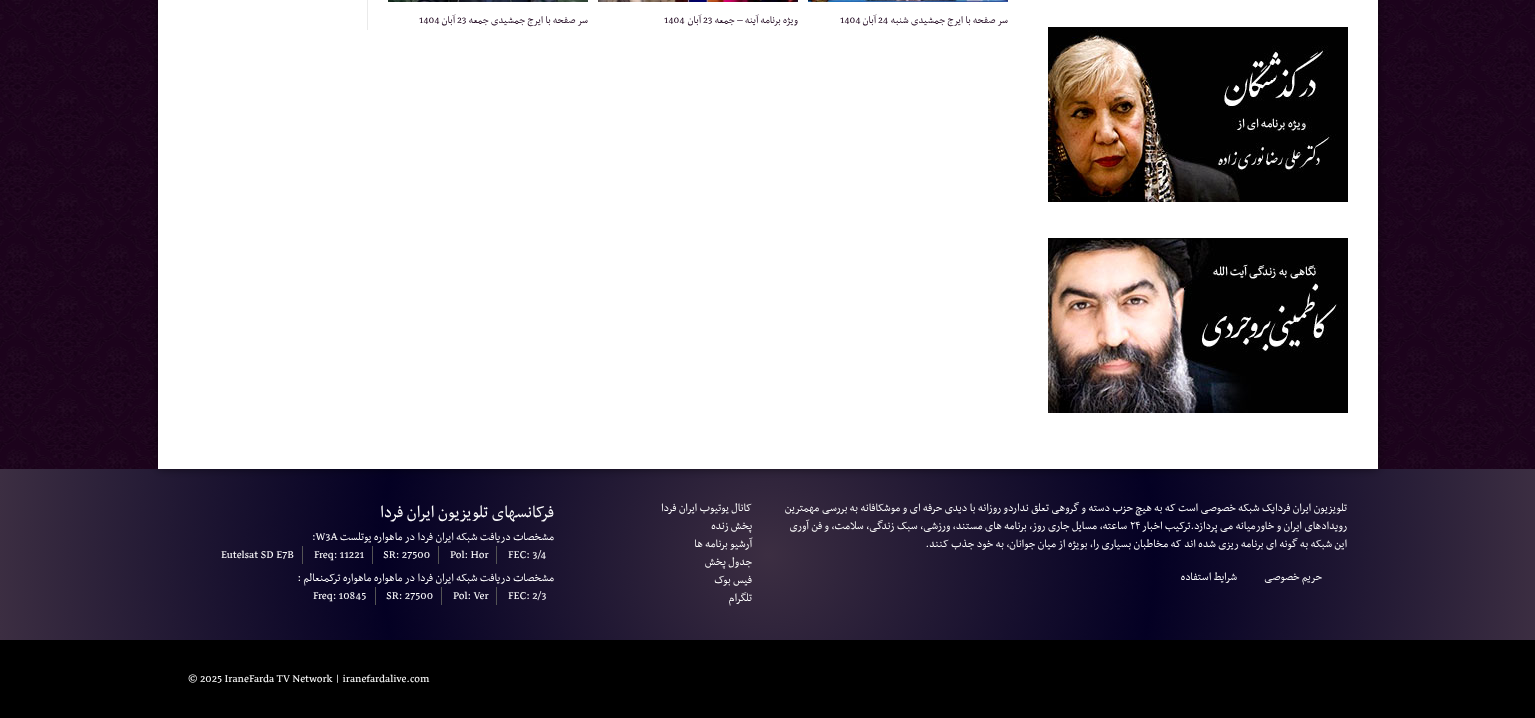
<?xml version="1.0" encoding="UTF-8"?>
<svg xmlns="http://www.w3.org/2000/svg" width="1535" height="718">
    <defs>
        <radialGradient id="g1" gradientUnits="userSpaceOnUse" cx="768" cy="555" r="772"><stop offset="0" stop-color="#3C2E42"/><stop offset="0.5" stop-color="#020024" stop-opacity="0.93"/><stop offset="1" stop-color="#3C2E42"/></radialGradient>
        <filter id="blur1" x="-50%" y="-200%" width="200%" height="500%"><feGaussianBlur stdDeviation="5"/></filter>
    </defs>
    <rect width="100%" height="100%" fill="#1C031C"/>
    <image x="0" y="0" width="1535" height="640" href="img_01.png"/>
    <rect x="0" y="469" width="1535" height="171" fill="url(#g1)"/>
    <rect x="158" y="-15" width="1220" height="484" fill="#000000" fill-opacity="0.5" filter="url(#blur1)"/>
    <rect x="158" y="0" width="1220" height="469" fill="#FFFFFF"/>
    <image x="808" y="0" width="200" height="2" href="img_02.png"/>
    <text x="1008" y="23" font-family="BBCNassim" font-size="11.75" direction="rtl" fill="#1C031C">سر صفحه با ایرج جمشیدی شنبه</text>
    <text x="878" y="23" font-family="BBCNassim" font-size="11.75" fill="#1C031C">24</text>
    <text x="876" y="23" font-family="BBCNassim" font-size="11.75" direction="rtl" fill="#1C031C">آبان</text>
    <text x="840" y="23" font-family="BBCNassim" font-size="11.75" fill="#1C031C">1404</text>
    <image x="598" y="0" width="200" height="2" href="img_03.png"/>
    <text x="798" y="23" font-family="BBCNassim" font-size="11.75" direction="rtl" fill="#1C031C">ویژه برنامه آینه – جمعه</text>
    <text x="703" y="23" font-family="BBCNassim" font-size="11.75" fill="#1C031C">23</text>
    <text x="701" y="23" font-family="BBCNassim" font-size="11.75" direction="rtl" fill="#1C031C">آبان</text>
    <text x="664" y="23" font-family="BBCNassim" font-size="11.75" fill="#1C031C">1404</text>
    <image x="388" y="0" width="200" height="2" href="img_04.png"/>
    <text x="588" y="23" font-family="BBCNassim" font-size="11.75" direction="rtl" fill="#1C031C">سر صفحه با ایرج جمشیدی جمعه</text>
    <text x="457" y="23" font-family="BBCNassim" font-size="11.75" fill="#1C031C">23</text>
    <text x="455" y="23" font-family="BBCNassim" font-size="11.75" direction="rtl" fill="#1C031C">آبان</text>
    <text x="419" y="23" font-family="BBCNassim" font-size="11.75" fill="#1C031C">1404</text>
    <rect x="367" y="0" width="1" height="30" fill="#EAEAEA"/>
    <image x="1048" y="27" width="300" height="175" href="img_05.png"/>
    <image x="1048" y="238" width="300" height="175" href="img_06.png"/>
    <text font-family="BBCNassim" font-size="13" direction="rtl" fill="#FFFFFF">
        <tspan x="1347" y="511">تلویزیون ایران فردایک شبکه خصوصی است که به هیچ حزب دسته و گروهی تعلق نداردو روزانه با دیدی حرفه ای و موشکافانه به بررسی مهمترین</tspan>
        <tspan x="1347" y="529">رویدادهای ایران و خاورمیانه می پردازد.ترکیب اخبار</tspan>
    </text>
    <text x="1130" y="529" font-family="BBCNassim" font-size="13" fill="#FFFFFF">۲۴</text>
    <text x="1127" y="529" font-family="BBCNassim" font-size="13" direction="rtl" fill="#FFFFFF">ساعته، مسایل جاری روز، برنامه های مستند، ورزشی، سبک زندگی، سلامت، و فن آوری</text>
    <text x="1347" y="547" font-family="BBCNassim" font-size="13" direction="rtl" fill="#FFFFFF">این شبکه به گونه ای برنامه ریزی شده اند که مخاطبان بسیاری را، بویژه از میان جوانان، به خود جذب کنند.</text>
    <text x="1322" y="580" font-family="BBCNassim" font-size="13" direction="rtl" fill="#FFFFFF">حریم خصوصی</text>
    <text x="1237" y="580" font-family="BBCNassim" font-size="13" direction="rtl" fill="#FFFFFF">شرایط استفاده</text>
    <text font-family="BBCNassim" font-size="13" direction="rtl" fill="#FFFFFF">
        <tspan x="752" y="511">کانال یوتیوب ایران فردا</tspan>
        <tspan x="752" y="529">پخش زنده</tspan>
        <tspan x="752" y="547">آرشیو برنامه ها</tspan>
        <tspan x="752" y="565">جدول پخش</tspan>
        <tspan x="752" y="583">فیس بوک</tspan>
        <tspan x="752" y="601">تلگرام</tspan>
    </text>
    <text x="554" y="517" font-family="BBCNassim" font-size="19.5" direction="rtl" fill="#FFFFFF">فرکانسهای تلویزیون ایران فردا</text>
    <text x="554" y="540" font-family="BBCNassim" font-size="13" direction="rtl" fill="#FFFFFF">مشخصات دریافت شبکه ایران فردا در ماهواره یوتلست</text>
    <text x="312" y="540" font-family="BBCNassim" font-size="13" fill="#FFFFFF">:W3A</text>
    <text x="508" y="558" font-family="BBCNassim" font-size="13" fill="#FFFFFF">FEC: 3/4</text>
    <text x="450" y="558" font-family="BBCNassim" font-size="13" fill="#FFFFFF">Pol: Hor</text>
    <rect x="496" y="546" width="1" height="18" fill="#545454"/>
    <text x="383" y="558" font-family="BBCNassim" font-size="13" fill="#FFFFFF">SR: 27500</text>
    <rect x="438" y="546" width="1" height="18" fill="#545454"/>
    <text x="314" y="558" font-family="BBCNassim" font-size="13" fill="#FFFFFF">Freq: 11221</text>
    <rect x="372" y="546" width="1" height="18" fill="#545454"/>
    <text x="221" y="558" font-family="BBCNassim" font-size="13" fill="#FFFFFF">Eutelsat SD E7B</text>
    <rect x="302" y="546" width="1" height="18" fill="#545454"/>
    <text x="554" y="581" font-family="BBCNassim" font-size="13" direction="rtl" fill="#FFFFFF">مشخصات دریافت شبکه ایران فردا در ماهواره ماهواره ترکمنعالم :</text>
    <text x="508" y="599" font-family="BBCNassim" font-size="13" fill="#FFFFFF">FEC: 2/3</text>
    <text x="453" y="599" font-family="BBCNassim" font-size="13" fill="#FFFFFF">Pol: Ver</text>
    <rect x="496" y="587" width="1" height="18" fill="#545454"/>
    <text x="386" y="599" font-family="BBCNassim" font-size="13" fill="#FFFFFF">SR: 27500</text>
    <rect x="441" y="587" width="1" height="18" fill="#545454"/>
    <text x="313" y="599" font-family="BBCNassim" font-size="13" fill="#FFFFFF">Freq: 10845</text>
    <rect x="375" y="587" width="1" height="18" fill="#545454"/>
    <rect x="0" y="640" width="1535" height="78" fill="#000000"/>
    <text x="188" y="682" font-family="BBCNassim" font-size="13" fill="#FFFFFF">© 2025 IraneFarda TV Network | iranefardalive.com</text>
</svg>
